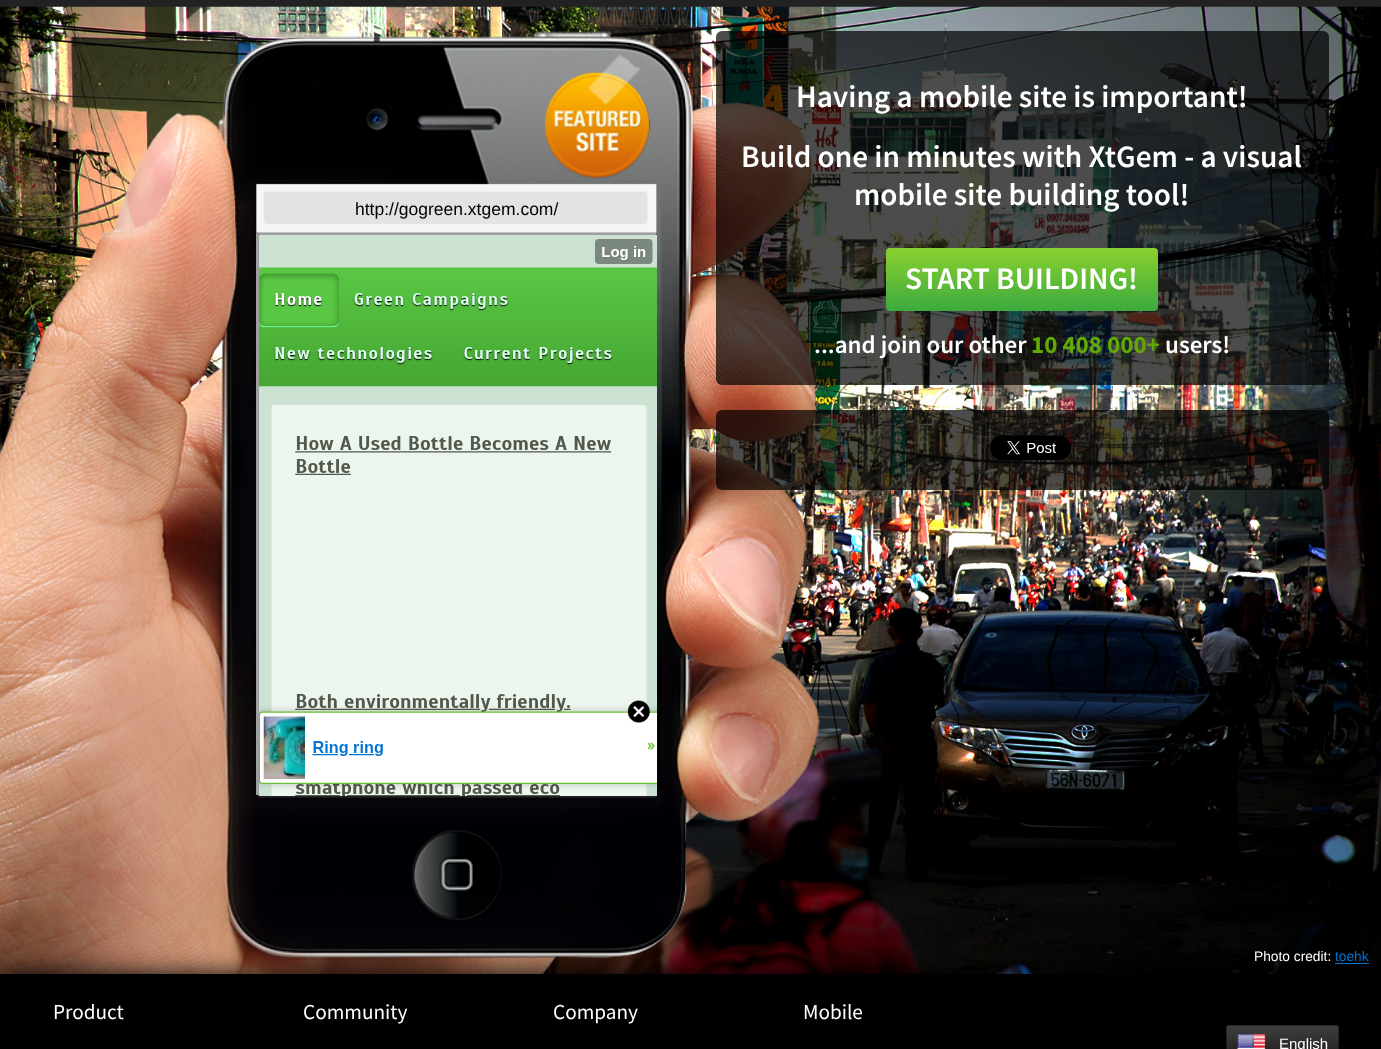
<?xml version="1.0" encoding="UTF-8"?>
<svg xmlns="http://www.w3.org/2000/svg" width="1381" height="1049">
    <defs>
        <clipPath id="clip1"><rect x="256" y="233" width="400" height="562"/></clipPath>
        <linearGradient id="g1" gradientUnits="userSpaceOnUse" x1="1022" y1="248" x2="1022" y2="311"><stop offset="0" stop-color="#8AD12F"/><stop offset="1" stop-color="#3CAA3E"/></linearGradient>
        <filter id="blur1" x="-50%" y="-200%" width="200%" height="500%"><feGaussianBlur stdDeviation="12.5"/></filter>
    </defs>
    <rect width="100%" height="100%" fill="#222222"/>
    <image x="0" y="6" width="1381" height="968" href="img_01.png"/>
    <image x="0" y="31" width="820" height="943" href="img_02.png"/>
    <text x="355" y="215" font-family="Liberation Sans" font-size="17.5" fill="#000000">http://gogreen.xtgem.com/</text>
    <g clip-path="url(#clip1)">
        <path d="M 256 232 H 661 L 659 235 H 259 Z" fill="#9F9F9F"/>
        <path d="M 256 800 V 232 L 259 235 V 798 Z" fill="#9F9F9F"/>
    </g>
    <image x="259" y="235" width="398" height="561" href="img_03.png"/>
    <rect x="716" y="31" width="613" height="354" rx="6" fill="#000000" fill-opacity="0.7"/>
    <text x="796" y="107" font-family="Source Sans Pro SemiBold" font-size="31.25" font-weight="600" fill="#FFFFFF">Having a mobile site is important!</text>
    <text x="741" y="167" font-family="Source Sans Pro SemiBold" font-size="31.25" font-weight="600" fill="#FFFFFF">Build one in minutes with XtGem - a visual</text>
    <text x="854" y="205" font-family="Source Sans Pro SemiBold" font-size="31.25" font-weight="600" fill="#FFFFFF">mobile site building tool!</text>
    <rect x="886" y="248" width="272" height="63" rx="4" fill="url(#g1)"/>
    <text x="905" y="289" font-family="Source Sans Pro SemiBold" font-size="31.25" font-weight="600" fill="#FFFFFF">START BUILDING!</text>
    <text x="814" y="353" font-family="Source Sans Pro SemiBold" font-size="25" font-weight="600" fill="#FFFFFF">...and join our other</text>
    <text x="1031" y="353" font-family="Source Sans Pro" font-size="25" font-weight="700" fill="#62A802">10 408 000+</text>
    <text x="1165" y="353" font-family="Source Sans Pro SemiBold" font-size="25" font-weight="600" fill="#FFFFFF">users!</text>
    <rect x="716" y="410" width="613" height="80" rx="6" fill="#000000" fill-opacity="0.7"/>
    <image x="990" y="435" width="81" height="26" href="img_04.png"/>
    <rect x="0" y="974" width="1381" height="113" fill="#000000" filter="url(#blur1)"/>
    <rect x="0" y="974" width="1381" height="75" fill="#000000"/>
    <text x="1254" y="961" font-family="Liberation Sans" font-size="13.75" fill="#FFFFFF">Photo credit:</text>
    <text x="1335" y="961" font-family="Liberation Sans" font-size="13.75" fill="#0274D4">toehk</text>
    <rect x="1335" y="963" width="34" height="1" fill="#0274D4"/>
    <text x="53" y="1019" font-family="Source Sans Pro" font-size="21.25" fill="#FFFFFF">Product</text>
    <text x="303" y="1019" font-family="Source Sans Pro" font-size="21.25" fill="#FFFFFF">Community</text>
    <text x="553" y="1019" font-family="Source Sans Pro" font-size="21.25" fill="#FFFFFF">Company</text>
    <text x="803" y="1019" font-family="Source Sans Pro" font-size="21.25" fill="#FFFFFF">Mobile</text>
    <image x="1226" y="1025" width="102" height="24" href="img_05.png"/>
    <image x="1328" y="1025" width="11" height="24" href="img_06.png"/>
    <image x="1236" y="1033" width="30" height="16" href="img_07.png"/>
    <text x="1279" y="1049" font-family="Liberation Sans" font-size="15" fill="#FFFFFF">English</text>
</svg>
